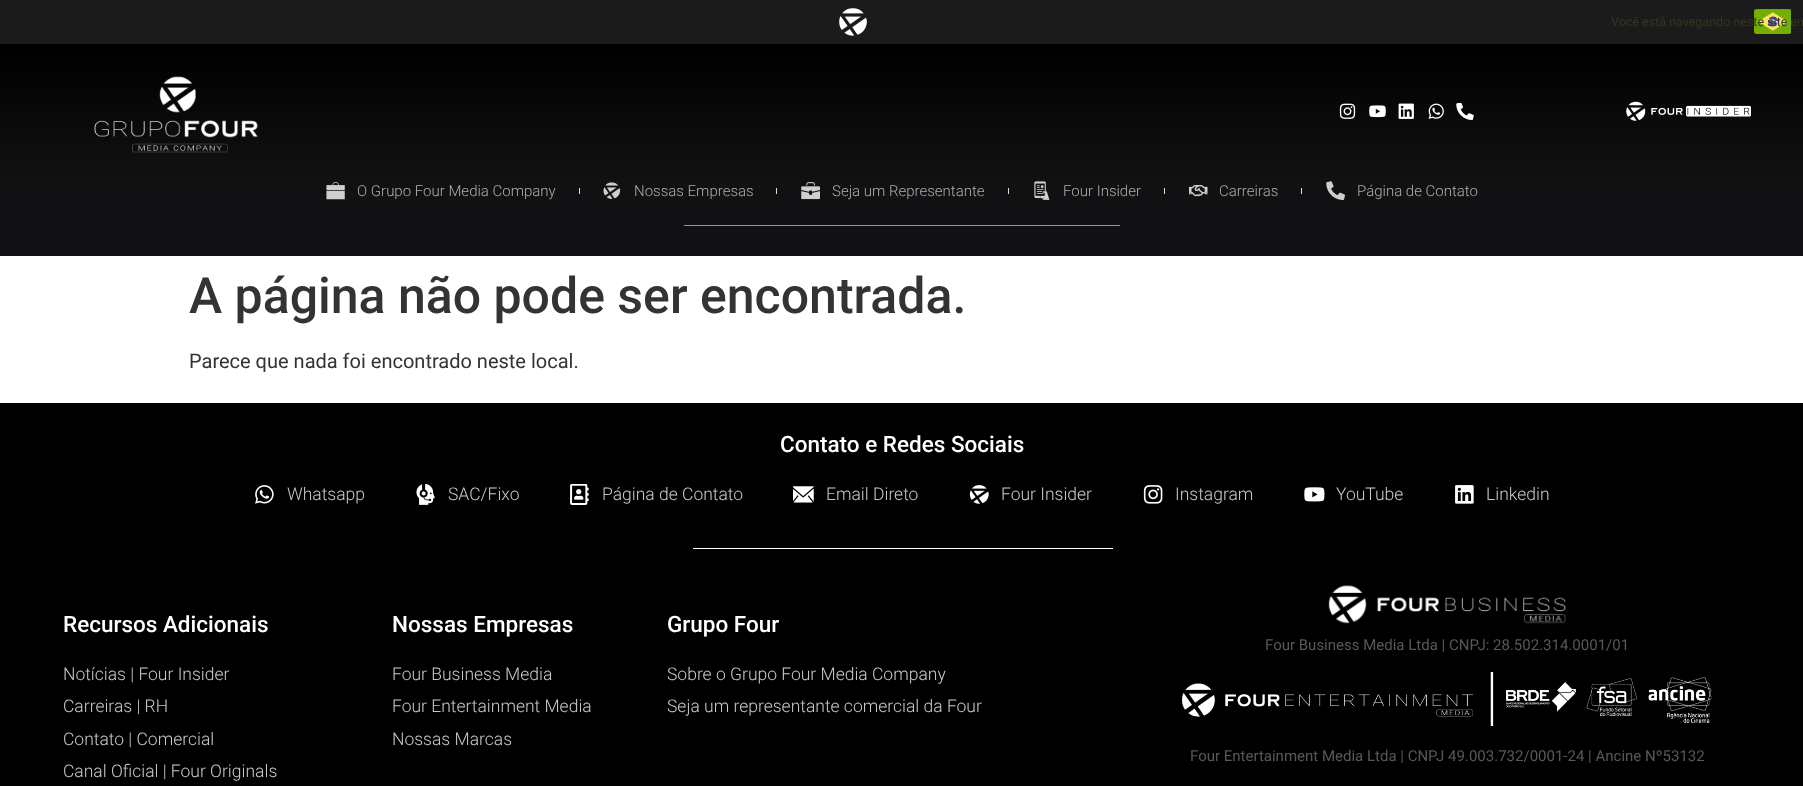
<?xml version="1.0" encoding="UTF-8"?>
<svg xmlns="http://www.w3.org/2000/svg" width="1803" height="786">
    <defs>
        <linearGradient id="g1" gradientUnits="userSpaceOnUse" x1="902" y1="44" x2="902" y2="179"><stop offset="0" stop-color="#000000"/><stop offset="1" stop-color="#111113"/></linearGradient>
    </defs>
    <rect width="100%" height="100%" fill="#FFFFFF"/>
    <rect x="0" y="0" width="1803" height="44" fill="#1B1B1B"/>
    <image x="839" y="8" width="28" height="28" href="img_01.png"/>
    <image x="1754" y="9" width="37" height="25" href="img_02.png"/>
    <text x="1611" y="26" font-family="Roboto" font-size="12.5" fill="#343625">Você está navegando neste site em</text>
    <rect x="0" y="44" width="1803" height="135" fill="url(#g1)"/>
    <image x="94" y="76" width="164" height="77" href="img_03.png"/>
    <image x="1339" y="103" width="17" height="16" href="img_04.png"/>
    <image x="1369" y="105" width="17" height="13" href="img_05.png"/>
    <image x="1398" y="103" width="16" height="16" href="img_06.png"/>
    <image x="1428" y="103" width="16" height="16" href="img_07.png"/>
    <image x="1456" y="103" width="18" height="17" href="img_08.png"/>
    <image x="1626" y="101" width="125" height="20" href="img_09.png"/>
    <rect x="0" y="179" width="1803" height="77" fill="#111113"/>
    <image x="326" y="182" width="19" height="18" href="img_10.png"/>
    <text x="357" y="196" font-family="Roboto" font-size="15" font-weight="300" fill="#AEAEAF">O Grupo Four Media Company</text>
    <rect x="579" y="188" width="1" height="6" fill="#DDDDDD"/>
    <image x="603" y="182" width="18" height="17" href="img_11.png"/>
    <text x="634" y="196" font-family="Roboto" font-size="15" font-weight="300" fill="#AEAEAF">Nossas Empresas</text>
    <rect x="776" y="188" width="1" height="6" fill="#DDDDDD"/>
    <image x="801" y="182" width="19" height="18" href="img_12.png"/>
    <text x="832" y="196" font-family="Roboto" font-size="15" font-weight="300" fill="#AEAEAF">Seja um Representante</text>
    <rect x="1008" y="188" width="1" height="6" fill="#DDDDDD"/>
    <image x="1034" y="181" width="16" height="19" href="img_13.png"/>
    <text x="1063" y="196" font-family="Roboto" font-size="15" font-weight="300" fill="#AEAEAF">Four Insider</text>
    <rect x="1164" y="188" width="1" height="6" fill="#DDDDDD"/>
    <image x="1189" y="185" width="19" height="12" href="img_14.png"/>
    <text x="1219" y="196" font-family="Roboto" font-size="15" font-weight="300" fill="#AEAEAF">Carreiras</text>
    <rect x="1301" y="188" width="1" height="6" fill="#DDDDDD"/>
    <image x="1326" y="181" width="19" height="19" href="img_15.png"/>
    <text x="1357" y="196" font-family="Roboto" font-size="15" font-weight="300" fill="#AEAEAF">Página de Contato</text>
    <rect x="684" y="225" width="436" height="1" fill="#969696"/>
    <text x="189" y="313" font-family="Roboto" font-size="50" font-weight="500" fill="#333333">A página não pode ser encontrada.</text>
    <text x="189" y="368" font-family="Roboto" font-size="20" fill="#333333">Parece que nada foi encontrado neste local.</text>
    <rect x="0" y="403" width="1803" height="383" fill="#000000"/>
    <text x="780" y="452" font-family="Roboto" font-size="22.5" font-weight="500" fill="#FFFFFF">Contato e Redes Sociais</text>
    <image x="255" y="485" width="19" height="19" href="img_16.png"/>
    <text x="287" y="500" font-family="Roboto" font-size="17.5" font-weight="300" fill="#C9C9C9">Whatsapp</text>
    <image x="416" y="484" width="19" height="21" href="img_17.png"/>
    <text x="448" y="500" font-family="Roboto" font-size="17.5" font-weight="300" fill="#C9C9C9">SAC/Fixo</text>
    <image x="570" y="484" width="19" height="21" href="img_18.png"/>
    <text x="602" y="500" font-family="Roboto" font-size="17.5" font-weight="300" fill="#C9C9C9">Página de Contato</text>
    <image x="793" y="486" width="21" height="17" href="img_19.png"/>
    <text x="826" y="500" font-family="Roboto" font-size="17.5" font-weight="300" fill="#C9C9C9">Email Direto</text>
    <image x="969" y="485" width="20" height="19" href="img_20.png"/>
    <text x="1001" y="500" font-family="Roboto" font-size="17.5" font-weight="300" fill="#C9C9C9">Four Insider</text>
    <image x="1143" y="485" width="20" height="19" href="img_21.png"/>
    <text x="1175" y="500" font-family="Roboto" font-size="17.5" font-weight="300" fill="#C9C9C9">Instagram</text>
    <image x="1304" y="487" width="21" height="15" href="img_22.png"/>
    <text x="1336" y="500" font-family="Roboto" font-size="17.5" font-weight="300" fill="#C9C9C9">YouTube</text>
    <image x="1455" y="485" width="19" height="19" href="img_23.png"/>
    <text x="1486" y="500" font-family="Roboto" font-size="17.5" font-weight="300" fill="#C9C9C9">Linkedin</text>
    <rect x="693" y="548" width="420" height="1" fill="#FFFFFF"/>
    <text x="63" y="632" font-family="Roboto" font-size="22.5" font-weight="500" fill="#FFFFFF">Recursos Adicionais</text>
    <text font-family="Roboto" font-size="17.5" font-weight="300" fill="#C9C9C9">
        <tspan x="63" y="680">Notícias | Four Insider</tspan>
        <tspan x="63" y="712">Carreiras | RH</tspan>
        <tspan x="63" y="745">Contato | Comercial</tspan>
        <tspan x="63" y="777">Canal Oficial | Four Originals</tspan>
    </text>
    <text x="392" y="632" font-family="Roboto" font-size="22.5" font-weight="500" fill="#FFFFFF">Nossas Empresas</text>
    <text font-family="Roboto" font-size="17.5" font-weight="300" fill="#C9C9C9">
        <tspan x="392" y="680">Four Business Media</tspan>
        <tspan x="392" y="712">Four Entertainment Media</tspan>
        <tspan x="392" y="745">Nossas Marcas</tspan>
    </text>
    <text x="667" y="632" font-family="Roboto" font-size="22.5" font-weight="500" fill="#FFFFFF">Grupo Four</text>
    <text font-family="Roboto" font-size="17.5" font-weight="300" fill="#C9C9C9">
        <tspan x="667" y="680">Sobre o Grupo Four Media Company</tspan>
        <tspan x="667" y="712">Seja um representante comercial da Four</tspan>
    </text>
    <image x="1328" y="585" width="239" height="39" href="img_24.png"/>
    <text x="1265" y="650" font-family="Roboto" font-size="15" fill="#54595F">Four Business Media Ltda | CNPJ: 28.502.314.0001/01</text>
    <image x="1182" y="672" width="530" height="54" href="img_25.png"/>
    <text x="1190" y="761" font-family="Roboto" font-size="15" fill="#54595F">Four Entertainment Media Ltda | CNPJ 49.003.732/0001-24 | Ancine Nº53132</text>
</svg>
